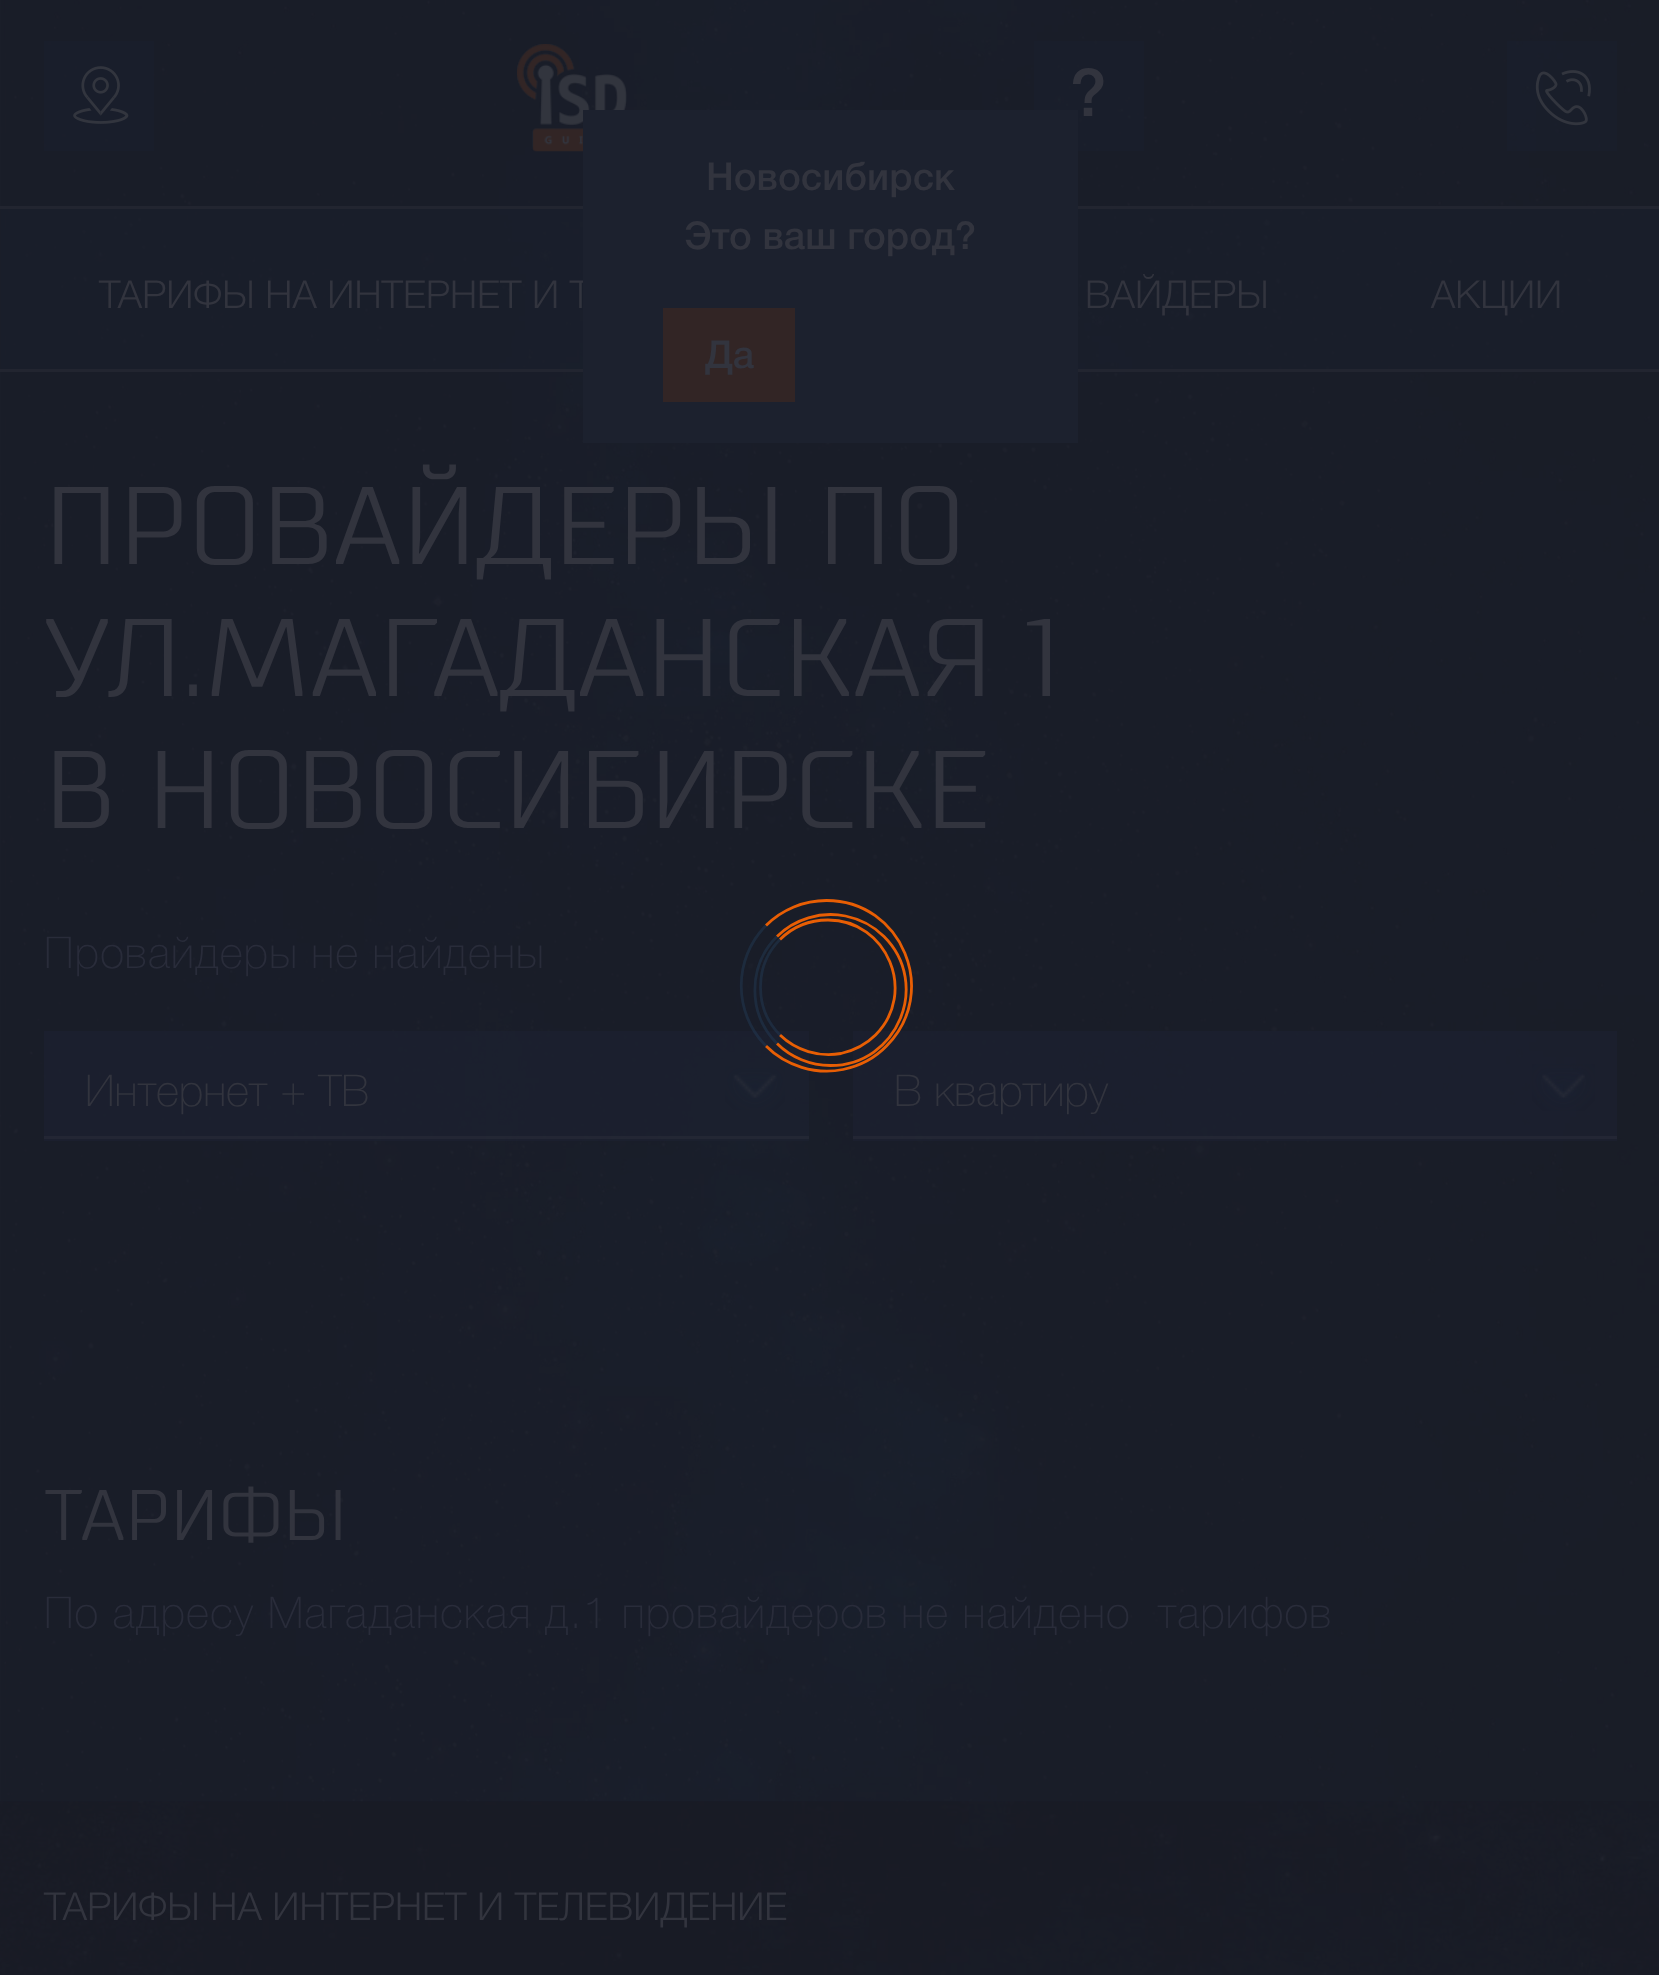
<?xml version="1.0" encoding="UTF-8"?>
<svg xmlns="http://www.w3.org/2000/svg" width="1659" height="1975">
    <rect width="100%" height="100%" fill="#FFFFFF"/>
    <image x="0" y="0" width="1659" height="1802" href="img_01.png"/>
    <rect x="44" y="41" width="110" height="110" fill="#1D283A" fill-opacity="0.15"/>
    <image x="73" y="66" width="56" height="58" href="img_02.png"/>
    <image x="517" y="44" width="110" height="108" href="img_03.png"/>
    <rect x="1034" y="41" width="110" height="110" fill="#1D283A" fill-opacity="0.15"/>
    <text x="1070" y="116" font-family="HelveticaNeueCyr" font-size="66" font-weight="500" fill="#32343E">?</text>
    <rect x="1507" y="41" width="110" height="110" fill="#1D283A" fill-opacity="0.15"/>
    <image x="1535" y="70" width="56" height="56" href="img_04.png"/>
    <rect x="1" y="209" width="1658" height="160" fill="#1B202E" fill-opacity="0.46"/>
    <rect x="0" y="206" width="1659" height="3" fill="#222530"/>
    <rect x="0" y="369" width="1659" height="3" fill="#222530"/>
    <text x="99" y="308" font-family="HelveticaNeueCyr" font-size="38.5" font-weight="300" fill="#32343E">ТАРИФЫ НА ИНТЕРНЕТ И Т</text>
    <rect x="583" y="110" width="495" height="333" fill="#1C212E"/>
    <text x="706" y="190" font-family="HelveticaNeueCyr" font-size="38.5" font-weight="500" fill="#32343E">Новосибирск</text>
    <text x="684" y="249" font-family="HelveticaNeueCyr" font-size="38.5" font-weight="500" fill="#32343E">Это ваш город?</text>
    <rect x="663" y="308" width="132" height="94" fill="#322525"/>
    <text x="705" y="368" font-family="HelveticaNeueCyr" font-size="38.5" font-weight="500" fill="#32343E">Да</text>
    <text x="1085" y="308" font-family="HelveticaNeueCyr" font-size="38.5" font-weight="300" fill="#32343E">ВАЙДЕРЫ</text>
    <text x="1431" y="308" font-family="HelveticaNeueCyr" font-size="38.5" font-weight="300" fill="#32343E">АКЦИИ</text>
    <text font-family="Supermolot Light" font-size="110" font-weight="300" fill="#32343E">
        <tspan x="44" y="564">ПРОВАЙДЕРЫ ПО</tspan>
        <tspan x="44" y="696">УЛ.МАГАДАНСКАЯ 1</tspan>
        <tspan x="44" y="828">В НОВОСИБИРСКЕ</tspan>
    </text>
    <text x="44" y="968" font-family="HelveticaNeueCyr" font-size="44" font-weight="100" letter-spacing="1.1" fill="#292C3A">Провайдеры не найдены</text>
    <rect x="44" y="1031" width="765" height="110" fill="#1C212F" fill-opacity="0.8"/>
    <text x="85" y="1106" font-family="HelveticaNeueCyr" font-size="44" font-weight="100" fill="#32343E">Интернет + ТВ</text>
    <image x="725" y="1066" width="60" height="44" href="img_05.png"/>
    <rect x="44" y="1136" width="765" height="3" fill="#2F333E" fill-opacity="0.4"/>
    <rect x="853" y="1031" width="764" height="110" fill="#1C212F" fill-opacity="0.8"/>
    <text x="894" y="1106" font-family="HelveticaNeueCyr" font-size="44" font-weight="100" fill="#32343E">В квартиру</text>
    <image x="1532" y="1064" width="63" height="47" href="img_06.png"/>
    <rect x="853" y="1136" width="764" height="3" fill="#2F333E" fill-opacity="0.4"/>
    <text x="44" y="1540" font-family="Supermolot Light" font-size="71.5" font-weight="300" fill="#32343E">ТАРИФЫ</text>
    <text x="44" y="1628" font-family="HelveticaNeueCyr" font-size="44" font-weight="100" letter-spacing="1.1" fill="#292C3A" xml:space="preserve">По адресу Магаданская д.1 провайдеров не найдено  тарифов</text>
    <image x="0" y="1801" width="1659" height="174" href="img_07.png"/>
    <text x="44" y="1920" font-family="HelveticaNeueCyr" font-size="38.5" font-weight="300" fill="#32343E">ТАРИФЫ НА ИНТЕРНЕТ И ТЕЛЕВИДЕНИЕ</text>
    <path d="M 777 936.5 C 794.5 919 820.5 911 845.5 916 C 860 919 873.5 926 884 936.5 C 931.5 984 897.5 1065.5 830.5 1065.5 C 810.5 1065.5 791 1057.5 777 1043.5" fill="none" stroke="#FF6600" stroke-opacity="0.9" stroke-width="2.8"/>
    <path d="M 777 1043.5 C 747.5 1014 747.5 966 777 936.5" fill="none" stroke="#25405C" stroke-opacity="0.41" stroke-width="2.8"/>
    <path d="M 780 939.5 C 792.5 927 810 920 828 920 C 887.5 920 917.5 993 875.5 1035 C 866 1044.5 854 1050.5 841 1053.5 C 819 1057.5 796 1050.5 780 1035" fill="none" stroke="#FF6600" stroke-opacity="0.9" stroke-width="2.8"/>
    <path d="M 780 1035 C 754 1009 754 965.5 780 939.5" fill="none" stroke="#25405C" stroke-opacity="0.41" stroke-width="2.8"/>
    <path d="M 766 925.5 C 782 909.5 804 900.5 826.5 900.5 C 902 900.5 940 992.5 886.5 1046 C 875 1058 859.5 1066 843 1069.5 C 815.5 1075 786 1066 766 1046" fill="none" stroke="#FF6600" stroke-opacity="0.9" stroke-width="2.8"/>
    <path d="M 766 1046 C 733 1013 733 958.5 766 925.5" fill="none" stroke="#25405C" stroke-opacity="0.41" stroke-width="2.8"/>
</svg>
